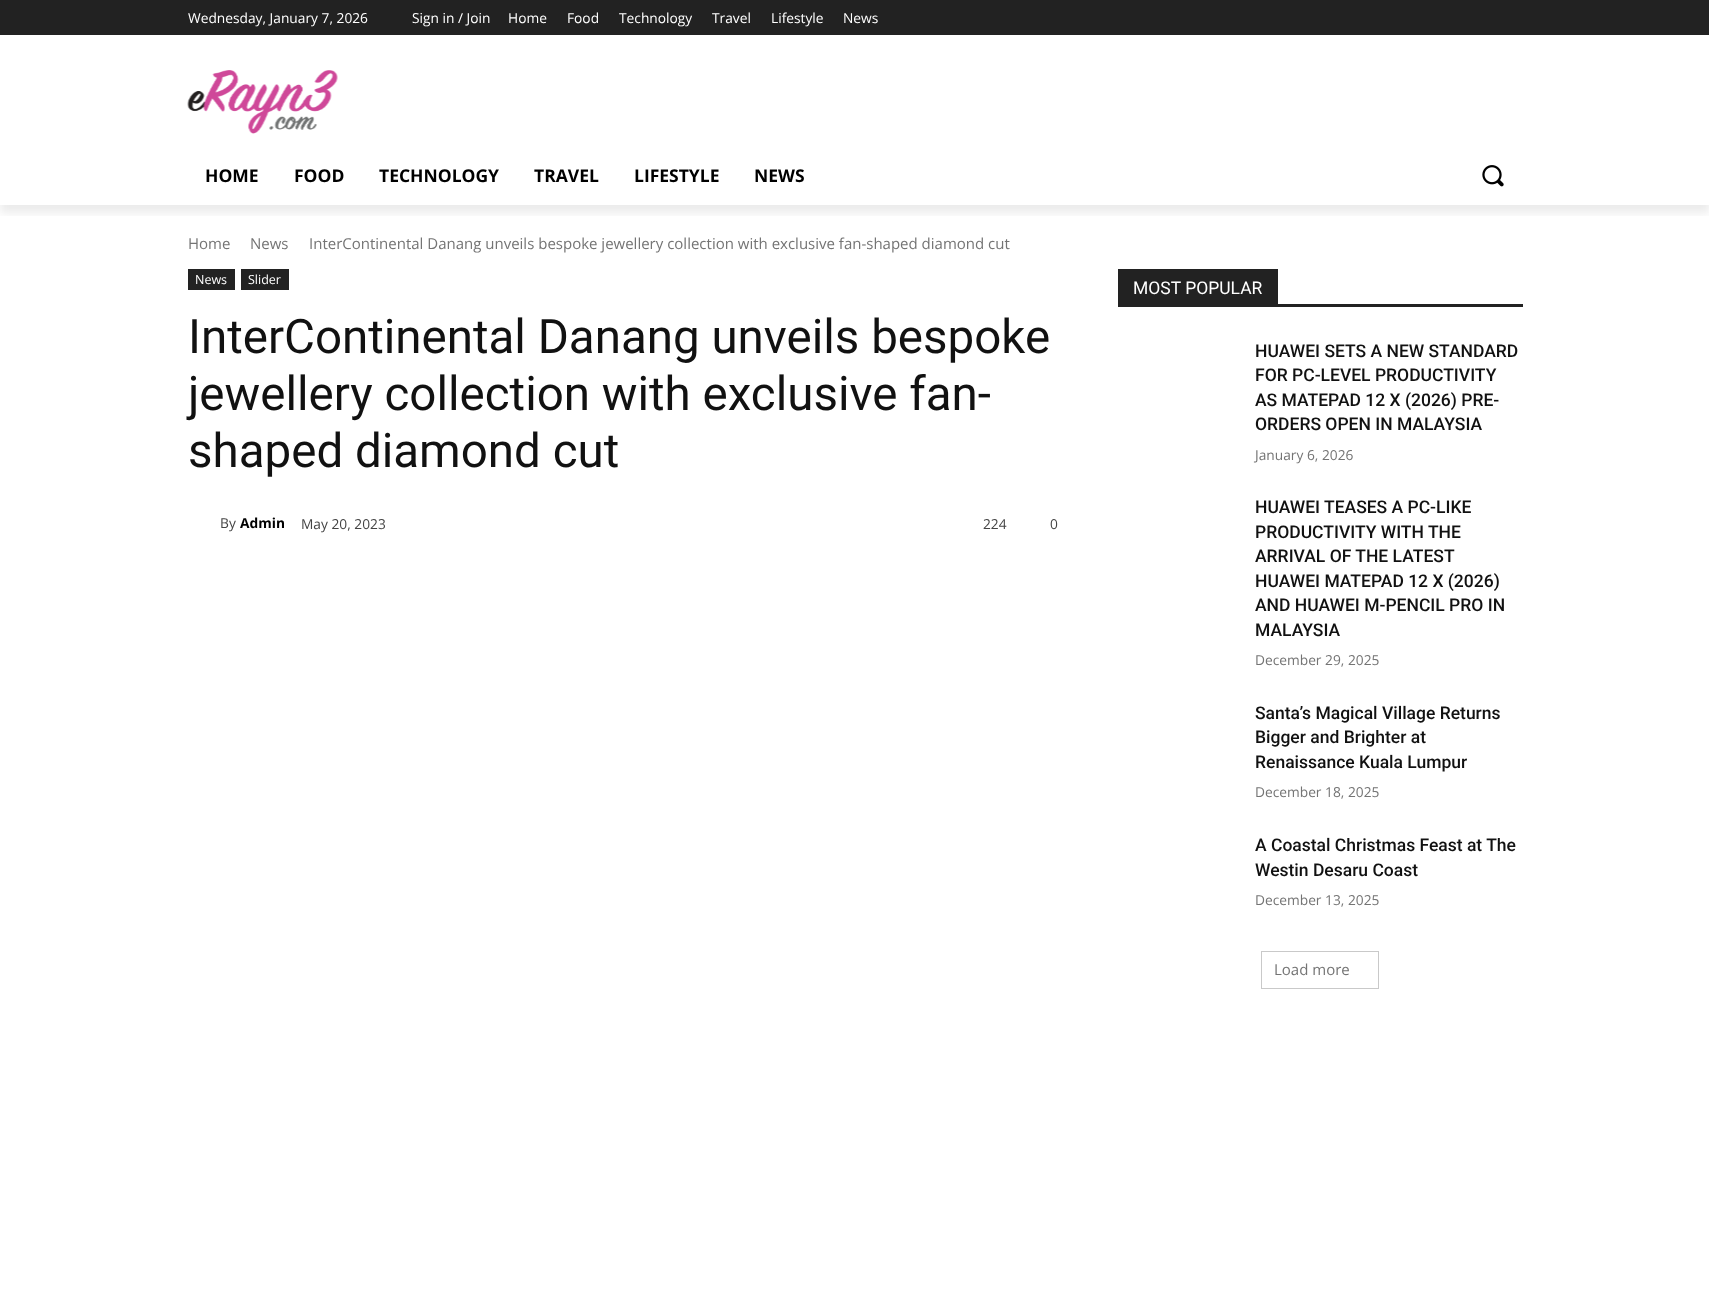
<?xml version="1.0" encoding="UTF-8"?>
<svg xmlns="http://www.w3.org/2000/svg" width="1709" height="1307">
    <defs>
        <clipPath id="clip1"><rect x="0" y="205" width="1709" height="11"/></clipPath>
        <filter id="blur1" x="-50%" y="-200%" width="200%" height="500%"><feGaussianBlur stdDeviation="5"/></filter>
    </defs>
    <rect width="100%" height="100%" fill="#FFFFFF"/>
    <rect x="0" y="0" width="1709" height="35" fill="#222222"/>
    <image x="187" y="70" width="151" height="64" href="img_01.png"/>
    <g clip-path="url(#clip1)">
        <rect x="0" y="8" width="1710" height="205" fill="#000000" fill-opacity="0.08" filter="url(#blur1)"/>
    </g>
    <text x="188" y="23" font-family="Open Sans" font-size="13.75" fill="#FFFFFF">Wednesday, January 7, 2026</text>
    <text x="412" y="23" font-family="Open Sans" font-size="13.75" fill="#FFFFFF">Sign in / Join</text>
    <text x="508" y="23" font-family="Open Sans" font-size="13.75" fill="#FFFFFF">Home</text>
    <text x="567" y="23" font-family="Open Sans" font-size="13.75" fill="#FFFFFF">Food</text>
    <text x="619" y="23" font-family="Open Sans" font-size="13.75" fill="#FFFFFF">Technology</text>
    <text x="712" y="23" font-family="Open Sans" font-size="13.75" fill="#FFFFFF">Travel</text>
    <text x="771" y="23" font-family="Open Sans" font-size="13.75" fill="#FFFFFF">Lifestyle</text>
    <text x="843" y="23" font-family="Open Sans" font-size="13.75" fill="#FFFFFF">News</text>
    <text x="205" y="182" font-family="Open Sans" font-size="17.5" font-weight="700" fill="#000000">HOME</text>
    <text x="294" y="182" font-family="Open Sans" font-size="17.5" font-weight="700" fill="#000000">FOOD</text>
    <text x="379" y="182" font-family="Open Sans" font-size="17.5" font-weight="700" fill="#000000">TECHNOLOGY</text>
    <text x="534" y="182" font-family="Open Sans" font-size="17.5" font-weight="700" fill="#000000">TRAVEL</text>
    <text x="634" y="182" font-family="Open Sans" font-size="17.5" font-weight="700" fill="#000000">LIFESTYLE</text>
    <text x="754" y="182" font-family="Open Sans" font-size="17.5" font-weight="700" fill="#000000">NEWS</text>
    <image x="1482" y="165" width="22" height="22" href="img_02.png"/>
    <text x="188" y="249" font-family="Open Sans" font-size="15" fill="#747474">Home</text>
    <text x="250" y="249" font-family="Open Sans" font-size="15" fill="#747474">News</text>
    <text x="309" y="249" font-family="Open Sans" font-size="15" fill="#747474">InterContinental Danang unveils bespoke jewellery collection with exclusive fan-shaped diamond cut</text>
    <rect x="188" y="269" width="47" height="21" fill="#222222"/>
    <text x="195" y="284" font-family="Open Sans" font-size="12.5" fill="#FFFFFF">News</text>
    <rect x="241" y="269" width="48" height="21" fill="#222222"/>
    <text x="248" y="284" font-family="Open Sans" font-size="12.5" fill="#FFFFFF">Slider</text>
    <text font-family="Roboto" font-size="47.5" fill="#111111">
        <tspan x="188" y="353">InterContinental Danang unveils bespoke</tspan>
        <tspan x="188" y="410">jewellery collection with exclusive fan-</tspan>
        <tspan x="188" y="467">shaped diamond cut</tspan>
    </text>
    <text x="220" y="528" font-family="Open Sans" font-size="13.75" fill="#444444">By</text>
    <text x="240" y="528" font-family="Open Sans" font-size="13.75" font-weight="700" fill="#000000">Admin</text>
    <text x="301" y="529" font-family="Open Sans" font-size="13.75" fill="#444444">May 20, 2023</text>
    <text x="983" y="529" font-family="Open Sans" font-size="13.75" fill="#444444">224</text>
    <text x="1050" y="529" font-family="Open Sans" font-size="13.75" fill="#444444">0</text>
    <rect x="1118" y="304" width="405" height="3" fill="#222222"/>
    <rect x="1118" y="269" width="160" height="35" fill="#222222"/>
    <text x="1133" y="294" font-family="Roboto" font-size="17.5" fill="#FFFFFF">MOST POPULAR</text>
    <text font-family="Roboto" font-size="17.5" font-weight="500" fill="#111111">
        <tspan x="1255" y="357">HUAWEI SETS A NEW STANDARD</tspan>
        <tspan x="1255" y="381">FOR PC-LEVEL PRODUCTIVITY</tspan>
        <tspan x="1255" y="406">AS MATEPAD 12 X (2026) PRE-</tspan>
        <tspan x="1255" y="430">ORDERS OPEN IN MALAYSIA</tspan>
    </text>
    <text x="1255" y="460" font-family="Open Sans" font-size="13.75" fill="#747474">January 6, 2026</text>
    <text font-family="Roboto" font-size="17.5" font-weight="500" fill="#111111">
        <tspan x="1255" y="513">HUAWEI TEASES A PC-LIKE</tspan>
        <tspan x="1255" y="538">PRODUCTIVITY WITH THE</tspan>
        <tspan x="1255" y="562">ARRIVAL OF THE LATEST</tspan>
        <tspan x="1255" y="587">HUAWEI MATEPAD 12 X (2026)</tspan>
        <tspan x="1255" y="611">AND HUAWEI M-PENCIL PRO IN</tspan>
        <tspan x="1255" y="636">MALAYSIA</tspan>
    </text>
    <text x="1255" y="665" font-family="Open Sans" font-size="13.75" fill="#747474">December 29, 2025</text>
    <text font-family="Roboto" font-size="17.5" font-weight="500" fill="#111111">
        <tspan x="1255" y="719">Santa’s Magical Village Returns</tspan>
        <tspan x="1255" y="743">Bigger and Brighter at</tspan>
        <tspan x="1255" y="768">Renaissance Kuala Lumpur</tspan>
    </text>
    <text x="1255" y="797" font-family="Open Sans" font-size="13.75" fill="#747474">December 18, 2025</text>
    <text font-family="Roboto" font-size="17.5" font-weight="500" fill="#111111">
        <tspan x="1255" y="851">A Coastal Christmas Feast at The</tspan>
        <tspan x="1255" y="876">Westin Desaru Coast</tspan>
    </text>
    <text x="1255" y="905" font-family="Open Sans" font-size="13.75" fill="#747474">December 13, 2025</text>
    <rect x="1261.5" y="951.5" width="117" height="37" fill="none" stroke="#C9C9C9"/>
    <text x="1274" y="975" font-family="Open Sans" font-size="15" fill="#747474">Load more</text>
</svg>
